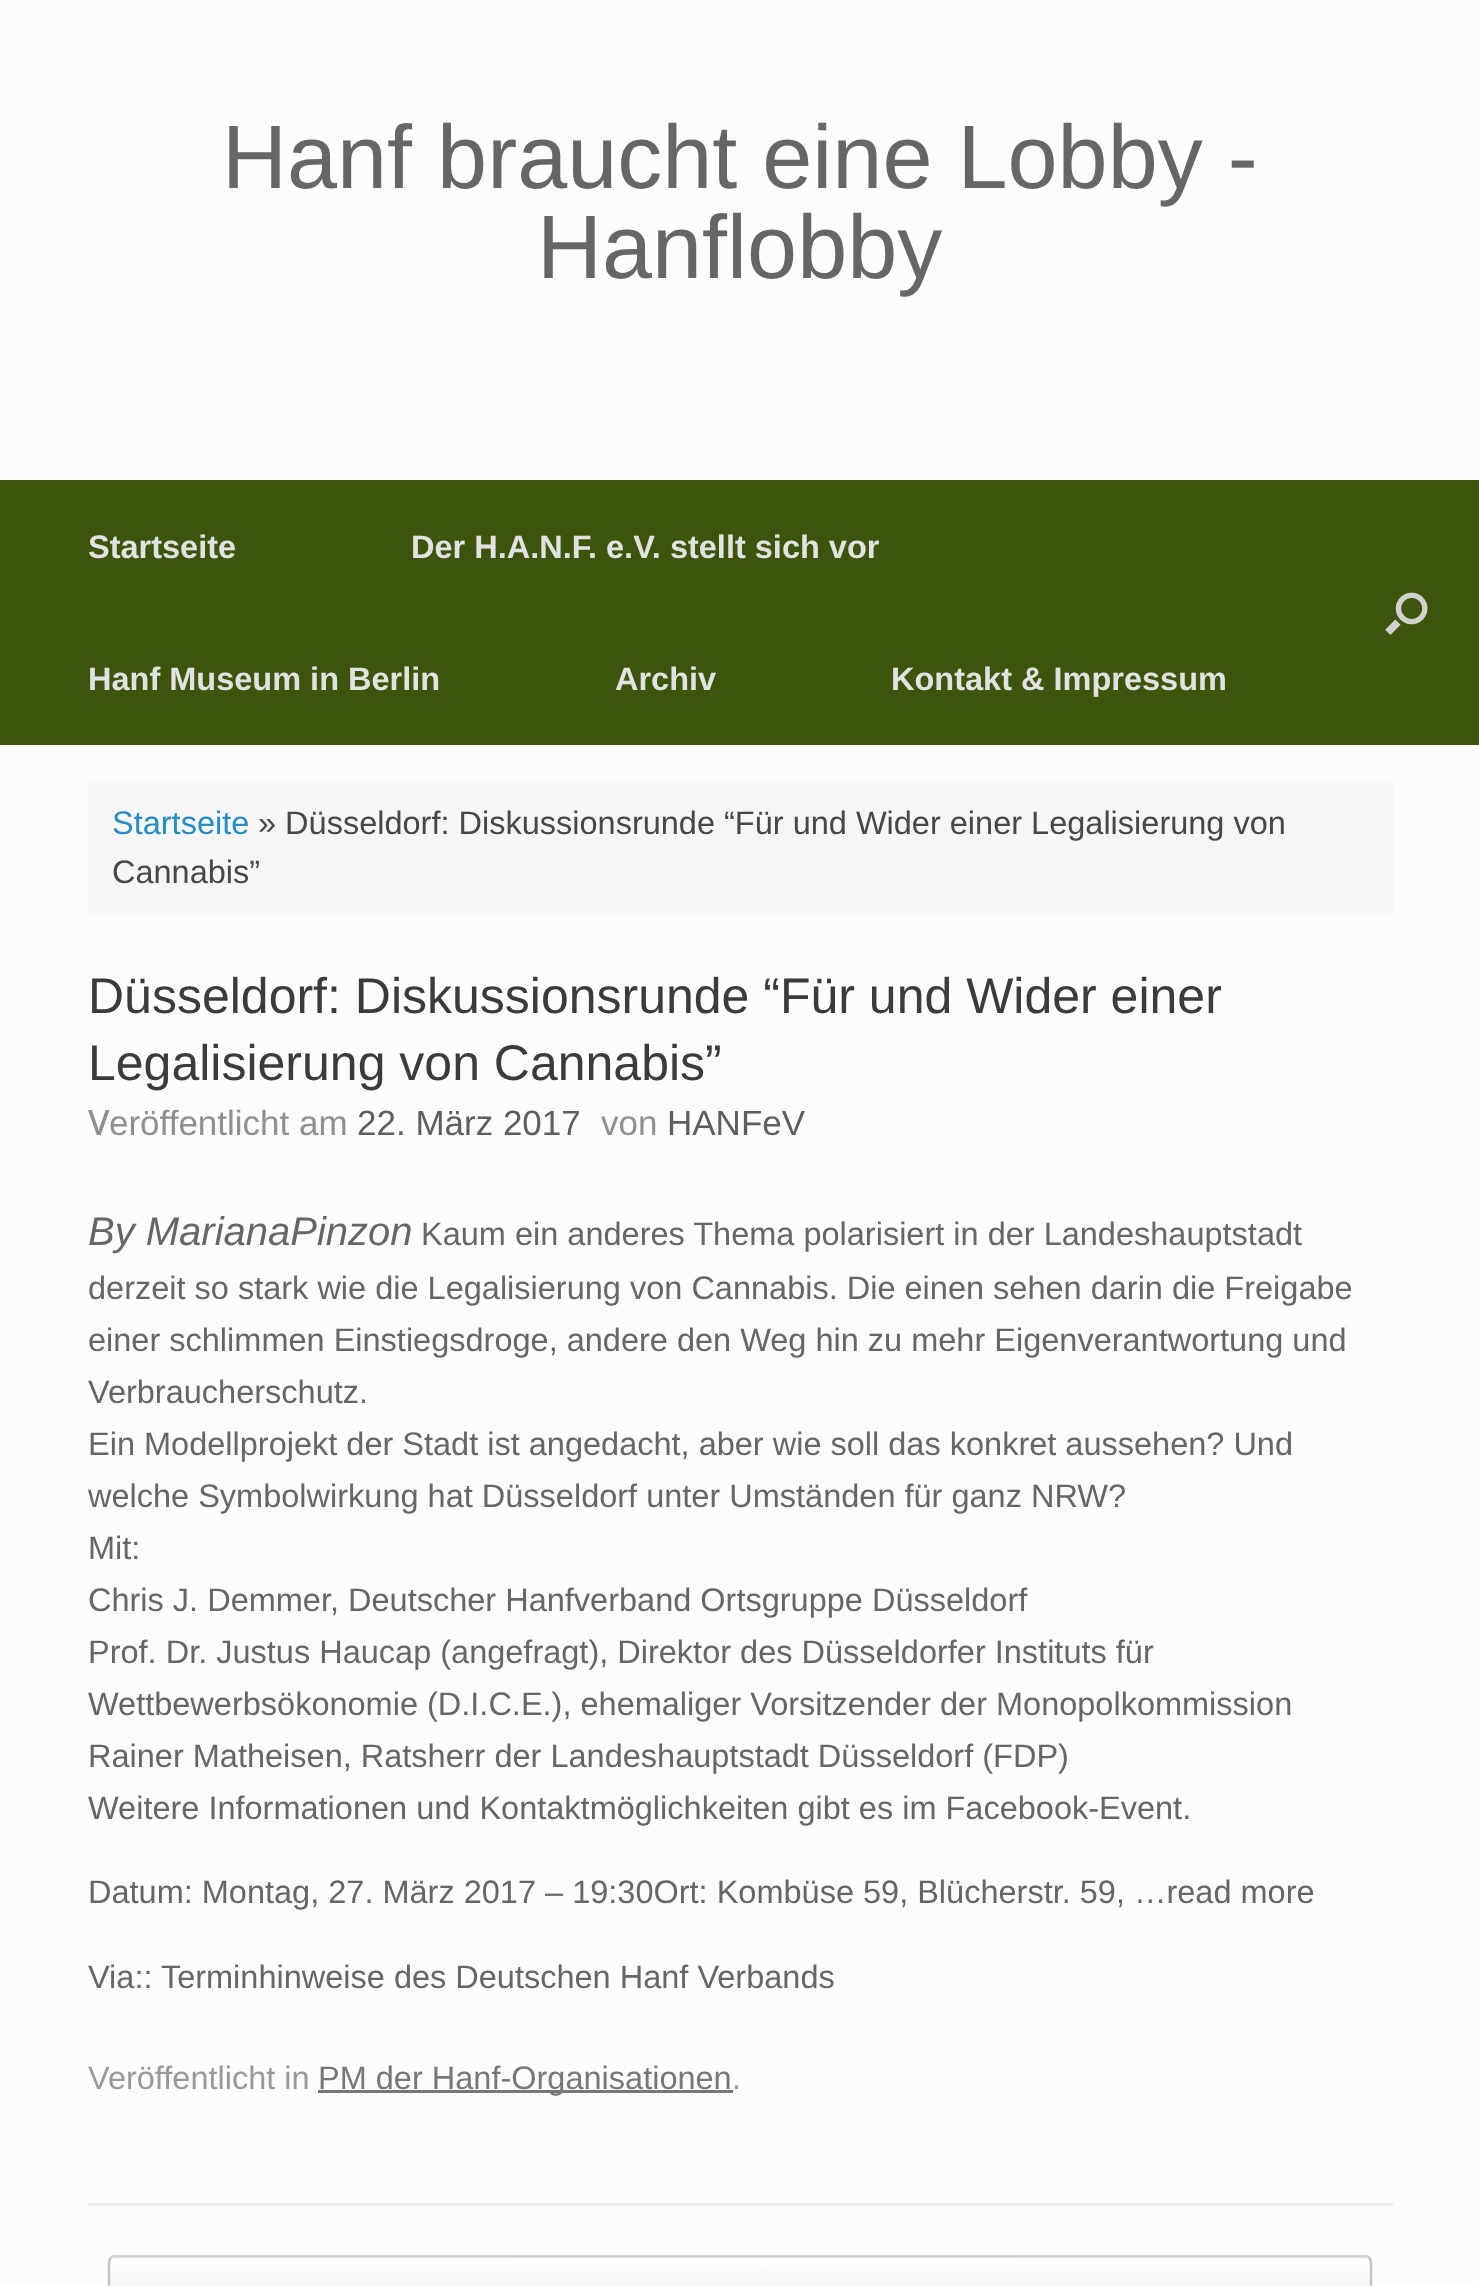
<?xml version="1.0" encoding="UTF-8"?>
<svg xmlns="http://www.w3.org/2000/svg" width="1479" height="2286">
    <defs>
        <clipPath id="clip1"><rect x="108" y="2255" width="1265" height="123" rx="8"/></clipPath>
        <linearGradient id="g1" gradientUnits="userSpaceOnUse" x1="110" y1="2258" x2="110" y2="2140"><stop offset="0" stop-color="#DFDFDF"/><stop offset="1" stop-color="#FFFFFF"/></linearGradient>
        <linearGradient id="g2" gradientUnits="userSpaceOnUse" x1="110" y1="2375" x2="110" y2="2258"><stop offset="0" stop-color="#DFDFDF"/><stop offset="1" stop-color="#FFFFFF"/></linearGradient>
        <clipPath id="clip2"><rect x="88" y="2255" width="1305" height="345"/></clipPath>
    </defs>
    <rect width="100%" height="100%" fill="#FCFCFC"/>
    <text x="222" y="188" font-family="Liberation Sans" font-size="90" fill="#666666">Hanf braucht eine Lobby -</text>
    <text x="537" y="278" font-family="Liberation Sans" font-size="90" fill="#666666">Hanflobby</text>
    <rect x="0" y="480" width="1479" height="265" fill="#3D540C"/>
    <text x="88" y="558" font-family="Liberation Sans" font-size="32.5" font-weight="700" fill="#E2E2E2">Startseite</text>
    <text x="411" y="558" font-family="Liberation Sans" font-size="32.5" font-weight="700" fill="#E2E2E2">Der H.A.N.F. e.V. stellt sich vor</text>
    <text x="88" y="690" font-family="Liberation Sans" font-size="32.5" font-weight="700" fill="#E2E2E2">Hanf Museum in Berlin</text>
    <text x="615" y="690" font-family="Liberation Sans" font-size="32.5" font-weight="700" fill="#E2E2E2">Archiv</text>
    <text x="891" y="690" font-family="Liberation Sans" font-size="32.5" font-weight="700" fill="#E2E2E2">Kontakt &amp; Impressum</text>
    <image x="1385" y="592" width="43" height="43" href="img_01.png"/>
    <rect x="88" y="783" width="1305" height="130" fill="#F6F6F6"/>
    <text x="112" y="834" font-family="Liberation Sans" font-size="32.5" fill="#248CC8">Startseite</text>
    <text x="258" y="834" font-family="Liberation Sans" font-size="32.5" fill="#474747">» Düsseldorf: Diskussionsrunde “Für und Wider einer Legalisierung von</text>
    <text x="112" y="883" font-family="Liberation Sans" font-size="32.5" fill="#474747">Cannabis”</text>
    <rect x="88" y="2203" width="1305" height="3" fill="#EEEEEE"/>
    <text font-family="Liberation Sans" font-size="50" fill="#3B3B3B">
        <tspan x="88" y="1013">Düsseldorf: Diskussionsrunde “Für und Wider einer</tspan>
        <tspan x="88" y="1080">Legalisierung von Cannabis”</tspan>
    </text>
    <text x="88" y="1135" font-family="Noto Sans" font-size="35" font-weight="500" fill="#8F8F8F">V</text>
    <text x="109" y="1135" font-family="Liberation Sans" font-size="35" fill="#8F8F8F">eröffentlicht am</text>
    <text x="357" y="1135" font-family="Liberation Sans" font-size="35" fill="#5E5E5E">22. März 2017</text>
    <text x="601" y="1135" font-family="Liberation Sans" font-size="35" fill="#8F8F8F">von</text>
    <text x="667" y="1135" font-family="Liberation Sans" font-size="35" fill="#5E5E5E">HANFeV</text>
    <text x="88" y="1245" font-family="Liberation Sans" font-size="40" font-style="italic" fill="#666666">By MarianaPinzon</text>
    <text x="421" y="1245" font-family="Liberation Sans" font-size="32.5" fill="#666666">Kaum ein anderes Thema polarisiert in der Landeshauptstadt</text>
    <text font-family="Liberation Sans" font-size="32.5" fill="#666666">
        <tspan x="88" y="1299">derzeit so stark wie die Legalisierung von Cannabis. Die einen sehen darin die Freigabe</tspan>
        <tspan x="88" y="1351">einer schlimmen Einstiegsdroge, andere den Weg hin zu mehr Eigenverantwortung und</tspan>
        <tspan x="88" y="1403">Verbraucherschutz.</tspan>
        <tspan x="88" y="1455">Ein Modellprojekt der Stadt ist angedacht, aber wie soll das konkret aussehen? Und</tspan>
        <tspan x="88" y="1507">welche Symbolwirkung hat Düsseldorf unter Umständen für ganz NRW?</tspan>
        <tspan x="88" y="1559">Mit:</tspan>
        <tspan x="88" y="1611">Chris J. Demmer, Deutscher Hanfverband Ortsgruppe Düsseldorf</tspan>
        <tspan x="88" y="1663">Prof. Dr. Justus Haucap (angefragt), Direktor des Düsseldorfer Instituts für</tspan>
        <tspan x="88" y="1715">Wettbewerbsökonomie (D.I.C.E.), ehemaliger Vorsitzender der Monopolkommission</tspan>
        <tspan x="88" y="1767">Rainer Matheisen, Ratsherr der Landeshauptstadt Düsseldorf (FDP)</tspan>
        <tspan x="88" y="1819">Weitere Informationen und Kontaktmöglichkeiten gibt es im Facebook-Event.</tspan>
    </text>
    <text x="88" y="1903" font-family="Liberation Sans" font-size="32.5" fill="#666666">Datum: Montag, 27. März 2017 – 19:30Ort: Kombüse 59, Blücherstr. 59, …read more</text>
    <text x="88" y="1988" font-family="Liberation Sans" font-size="32.5" fill="#666666">Via:: Terminhinweise des Deutschen Hanf Verbands</text>
    <text x="88" y="2089" font-family="Liberation Sans" font-size="32.5" fill="#999999">Veröffentlicht in</text>
    <rect x="318" y="2090" width="415" height="3" fill="#777777"/>
    <text x="318" y="2089" font-family="Liberation Sans" font-size="32.5" fill="#777777">PM der Hanf-Organisationen</text>
    <text x="732" y="2089" font-family="Liberation Sans" font-size="32.5" fill="#999999">.</text>
    <g clip-path="url(#clip1)">
        <rect x="108" y="2255" width="1265" height="3" fill="url(#g1)"/>
        <rect x="108" y="2258" width="1265" height="28" fill="url(#g2)"/>
    </g>
    <g clip-path="url(#clip2)">
        <path d="M 110.5 2258 C 112 2257 113.5 2256 115 2256 H 1365 C 1366.5 2256 1368 2257 1369.5 2258" fill="none" stroke="#D2D2D2" stroke-width="2.5"/>
    </g>
    <path d="M 1369.5 2258 C 1370.5 2259.5 1371 2261 1371 2262.5 V 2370 C 1371 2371.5 1370.5 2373 1369.5 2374.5" fill="none" stroke="#C3C3C3" stroke-width="2.5"/>
    <path d="M 110.5 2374.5 C 109.5 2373 109 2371.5 109 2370 V 2262.5 C 109 2261 109.5 2259.5 110.5 2258" fill="none" stroke="#C3C3C3" stroke-width="2.5"/>
</svg>
